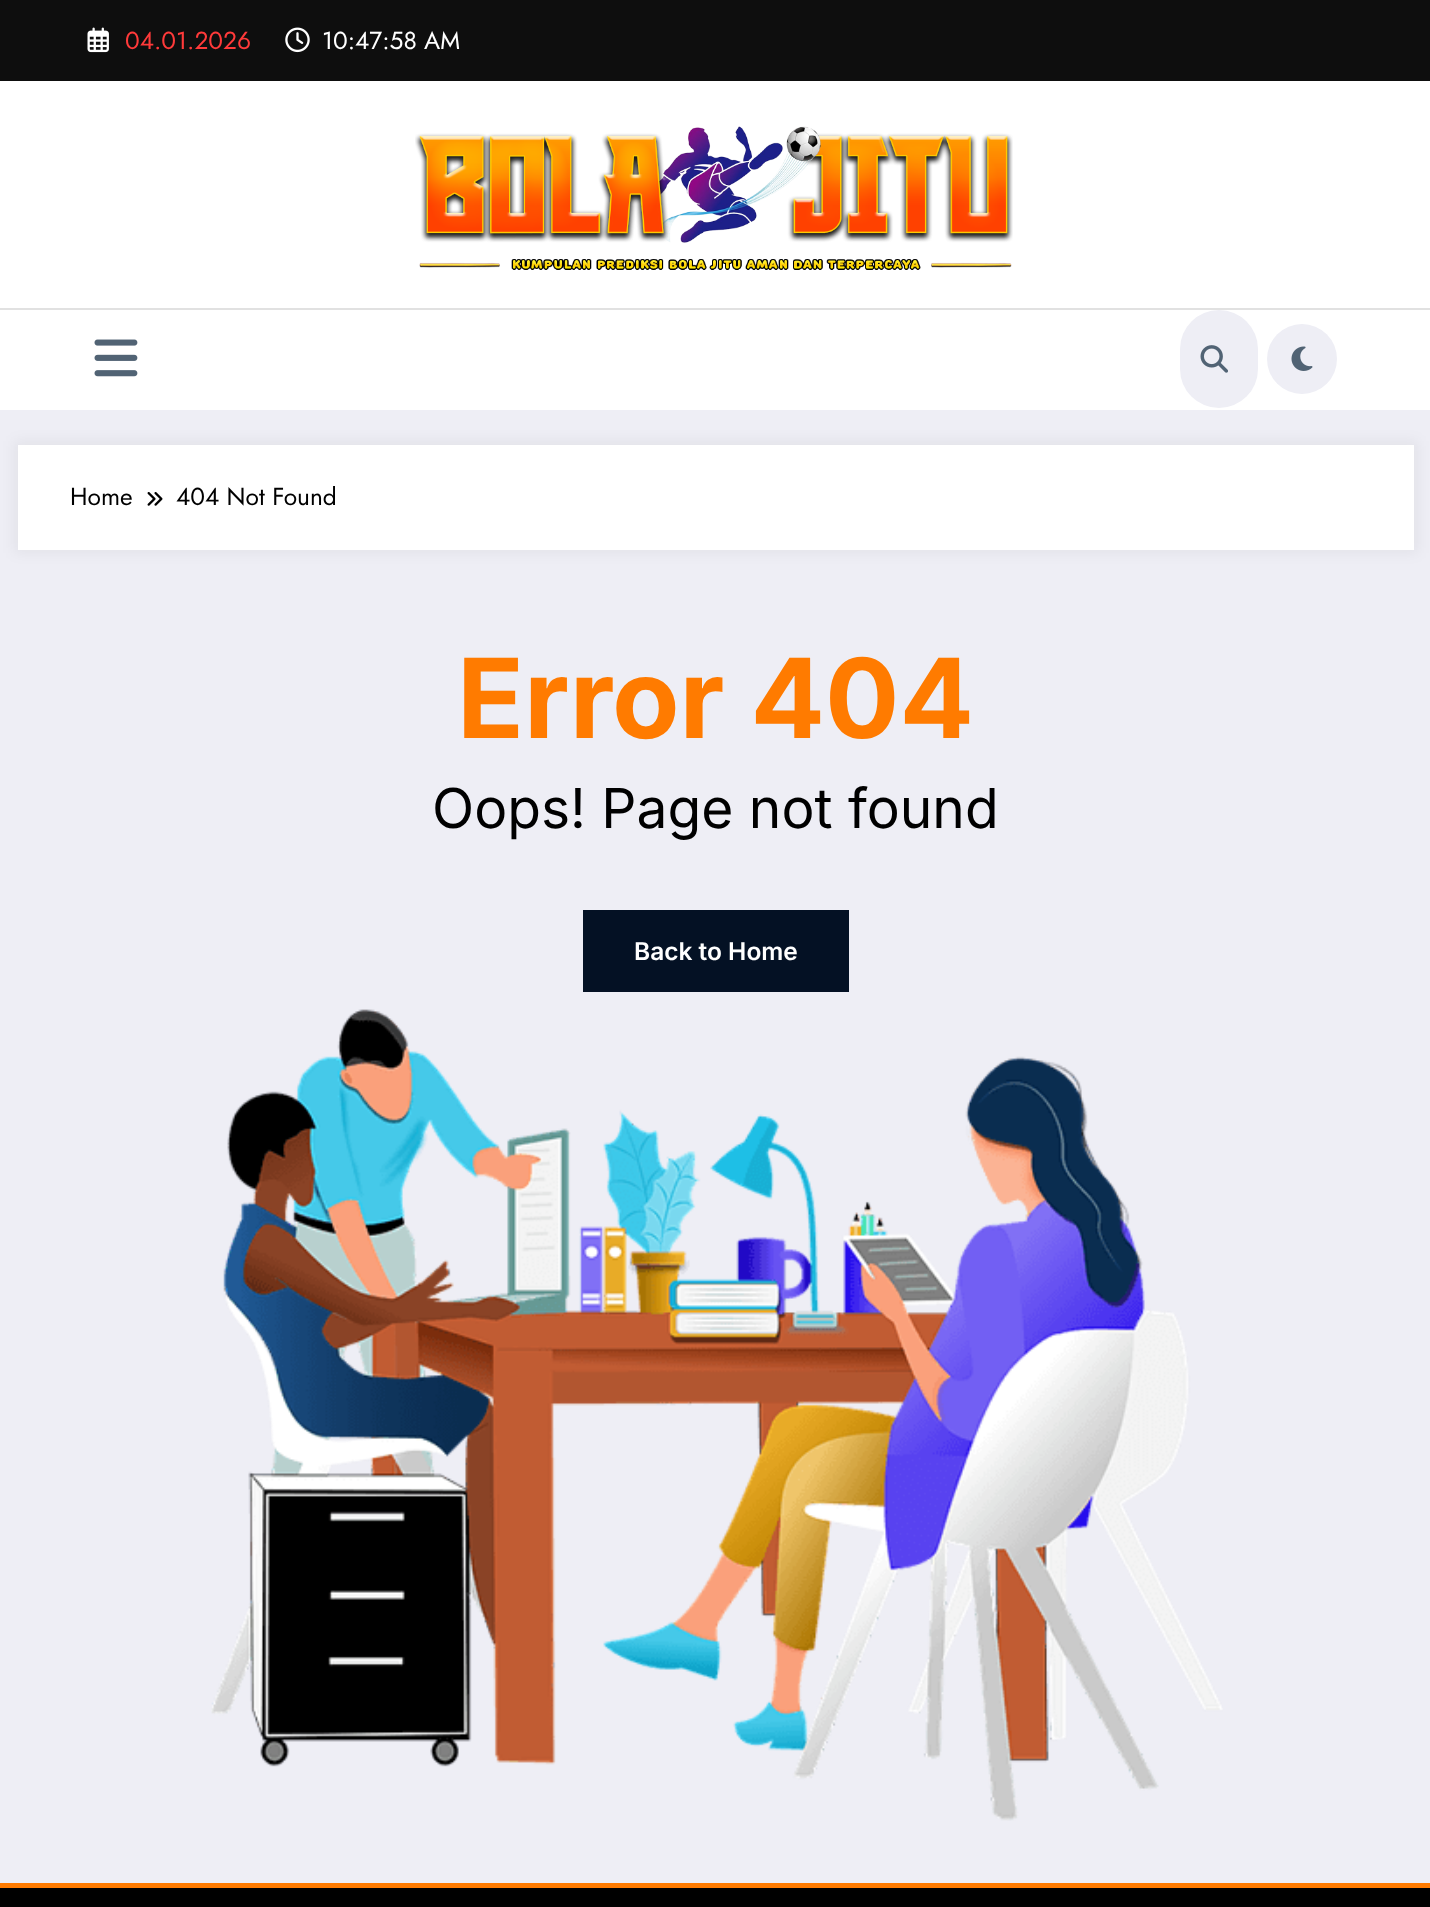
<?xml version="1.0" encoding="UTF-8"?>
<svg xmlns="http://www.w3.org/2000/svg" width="1430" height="1907">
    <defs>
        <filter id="blur1" x="-50%" y="-200%" width="200%" height="500%"><feGaussianBlur stdDeviation="7"/></filter>
    </defs>
    <rect width="100%" height="100%" fill="#EEEEF5"/>
    <rect x="0" y="0" width="1430" height="81" fill="#0E0E0E"/>
    <image x="87" y="27" width="22" height="26" href="img_01.png"/>
    <text x="125" y="49" font-family="Jost" font-size="24.5" fill="#FF3A3A">04.01.2026</text>
    <image x="285" y="27" width="25" height="26" href="img_02.png"/>
    <text x="322" y="49" font-family="Jost" font-size="24.5" fill="#FFFFFF">10:47:58 AM</text>
    <rect x="0" y="81" width="1430" height="329" fill="#FFFFFF"/>
    <image x="415" y="126" width="598" height="144" href="img_03.png"/>
    <rect x="0" y="308" width="1430" height="2" fill="#E1E1E1"/>
    <image x="94" y="339" width="44" height="38" href="img_04.png"/>
    <rect x="1180" y="310" width="78" height="98" rx="39" fill="#EEEEF5"/>
    <image x="1200" y="345" width="28" height="28" href="img_05.png"/>
    <circle cx="1302" cy="359" r="35" fill="#EEEEF5"/>
    <image x="1291" y="346" width="22" height="25" href="img_06.png"/>
    <rect x="14" y="441" width="1404" height="112" fill="#171723" fill-opacity="0.05" filter="url(#blur1)"/>
    <rect x="18" y="445" width="1396" height="105" fill="#FFFFFF"/>
    <text x="70" y="505" font-family="Jost" font-size="24.5" fill="#000000">Home</text>
    <image x="147" y="492" width="16" height="14" href="img_07.png"/>
    <text x="176" y="505" font-family="Jost" font-size="24.5" fill="#000000">404 Not Found</text>
    <text x="457" y="738" font-family="Inter" font-size="110.25" font-weight="700" fill="#FF7B00">Error 404</text>
    <text x="432" y="828" font-family="Inter" font-size="55.1" fill="#000000">Oops! Page not found</text>
    <rect x="583" y="910" width="266" height="82" fill="#041124"/>
    <text x="634" y="960" font-family="Inter" font-size="24.5" font-weight="600" fill="#FFFFFF">Back to Home</text>
    <image x="211" y="1009" width="1012" height="812" href="img_08.png"/>
    <rect x="0" y="1883" width="1430" height="5" fill="#FF7B00"/>
    <rect x="0" y="1888" width="1430" height="19" fill="#000000"/>
</svg>
